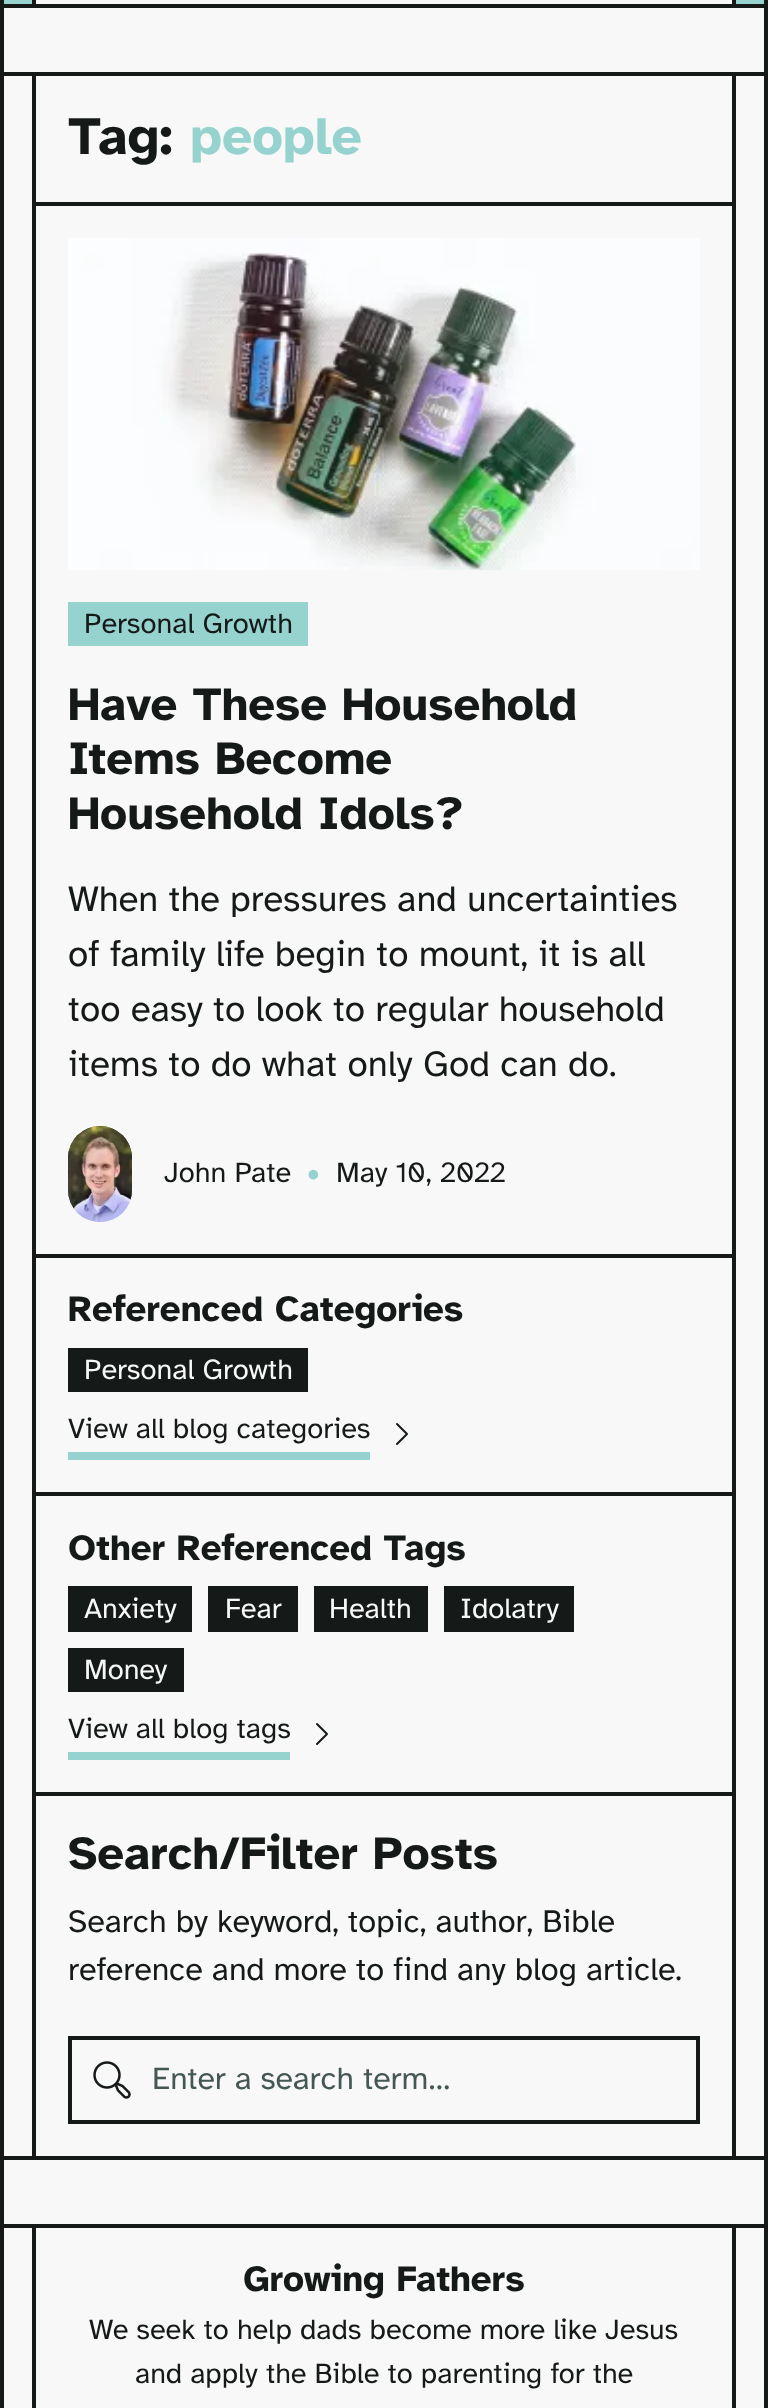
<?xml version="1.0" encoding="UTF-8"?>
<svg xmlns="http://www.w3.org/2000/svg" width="768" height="2408">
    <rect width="100%" height="100%" fill="#F7F8F7"/>
    <rect x="764" y="0" width="4" height="2408" fill="#151A19"/>
    <rect x="0" y="0" width="4" height="2408" fill="#151A19"/>
    <rect x="4" y="0" width="760" height="4" fill="#96D3CE"/>
    <rect x="4" y="4" width="760" height="4" fill="#151A19"/>
    <rect x="36" y="0" width="696" height="4" fill="#F7F8F7"/>
    <rect x="732" y="0" width="4" height="4" fill="#151A19"/>
    <rect x="32" y="0" width="4" height="4" fill="#151A19"/>
    <rect x="4" y="72" width="760" height="4" fill="#151A19"/>
    <rect x="4" y="2156" width="760" height="4" fill="#151A19"/>
    <rect x="732" y="76" width="4" height="1178" fill="#151A19"/>
    <rect x="32" y="76" width="4" height="1178" fill="#151A19"/>
    <rect x="36" y="202" width="696" height="4" fill="#151A19"/>
    <text x="68" y="154" font-family="Atkinson Hyperlegible" font-size="53.5" font-weight="700" fill="#151A19">Tag:</text>
    <text x="190" y="154" font-family="Atkinson Hyperlegible" font-size="53.5" font-weight="700" fill="#96D3CE">people</text>
    <image x="68" y="238" width="632" height="332" href="img_01.png"/>
    <rect x="68" y="602" width="240" height="44" fill="#96D3CE"/>
    <text x="84" y="633" font-family="Atkinson Hyperlegible" font-size="28.95" fill="#151A19">Personal Growth</text>
    <text font-family="Atkinson Hyperlegible" font-size="47.25" font-weight="700" fill="#151A19">
        <tspan x="68" y="720">Have These Household</tspan>
        <tspan x="68" y="774">Items Become</tspan>
        <tspan x="68" y="829">Household Idols?</tspan>
    </text>
    <text font-family="Atkinson Hyperlegible" font-size="36.7" fill="#151A19">
        <tspan x="68" y="911">When the pressures and uncertainties</tspan>
        <tspan x="68" y="966">of family life begin to mount, it is all</tspan>
        <tspan x="68" y="1021">too easy to look to regular household</tspan>
        <tspan x="68" y="1076">items to do what only God can do.</tspan>
    </text>
    <image x="68" y="1126" width="64" height="96" href="img_02.png"/>
    <image x="68" y="1126" width="64" height="96" href="img_03.png"/>
    <text x="164" y="1182" font-family="Atkinson Hyperlegible" font-size="28.95" fill="#151A19">John Pate</text>
    <text x="307" y="1182" font-family="Atkinson Hyperlegible" font-size="28.95" fill="#96D3CE">•</text>
    <text x="336" y="1182" font-family="Atkinson Hyperlegible" font-size="28.95" fill="#151A19">May 10, 2022</text>
    <rect x="32" y="1254" width="704" height="4" fill="#151A19"/>
    <rect x="732" y="1254" width="4" height="902" fill="#151A19"/>
    <rect x="32" y="1254" width="4" height="902" fill="#151A19"/>
    <rect x="36" y="1492" width="696" height="4" fill="#151A19"/>
    <text x="68" y="1321" font-family="Atkinson Hyperlegible" font-size="36.7" font-weight="700" fill="#151A19">Referenced Categories</text>
    <rect x="68" y="1348" width="240" height="44" fill="#151A19"/>
    <text x="84" y="1379" font-family="Atkinson Hyperlegible" font-size="28.95" fill="#F7F8F7">Personal Growth</text>
    <rect x="68" y="1452" width="302" height="8" fill="#96D3CE"/>
    <text x="68" y="1438" font-family="Atkinson Hyperlegible" font-size="28.95" fill="#151A19">View all blog categories</text>
    <path d="M 397 1424 L 407 1434 L 397 1444" fill="none" stroke="#151A19" stroke-width="2" stroke-linecap="round" stroke-linejoin="round"/>
    <rect x="36" y="1792" width="696" height="4" fill="#151A19"/>
    <text x="68" y="1560" font-family="Atkinson Hyperlegible" font-size="36.7" font-weight="700" fill="#151A19">Other Referenced Tags</text>
    <rect x="68" y="1586" width="124" height="46" fill="#151A19"/>
    <text x="84" y="1618" font-family="Atkinson Hyperlegible" font-size="28.95" fill="#F7F8F7">Anxiety</text>
    <rect x="208" y="1586" width="90" height="46" fill="#151A19"/>
    <text x="225" y="1618" font-family="Atkinson Hyperlegible" font-size="28.95" fill="#F7F8F7">Fear</text>
    <rect x="314" y="1586" width="114" height="46" fill="#151A19"/>
    <text x="329" y="1618" font-family="Atkinson Hyperlegible" font-size="28.95" fill="#F7F8F7">Health</text>
    <rect x="444" y="1586" width="130" height="46" fill="#151A19"/>
    <text x="460" y="1618" font-family="Atkinson Hyperlegible" font-size="28.95" fill="#F7F8F7">Idolatry</text>
    <rect x="68" y="1648" width="116" height="44" fill="#151A19"/>
    <text x="84" y="1679" font-family="Atkinson Hyperlegible" font-size="28.95" fill="#F7F8F7">Money</text>
    <rect x="68" y="1752" width="222" height="8" fill="#96D3CE"/>
    <text x="68" y="1738" font-family="Atkinson Hyperlegible" font-size="28.95" fill="#151A19">View all blog tags</text>
    <path d="M 317 1724 L 327 1734 L 317 1744" fill="none" stroke="#151A19" stroke-width="2" stroke-linecap="round" stroke-linejoin="round"/>
    <text x="68" y="1869" font-family="Atkinson Hyperlegible" font-size="47.25" font-weight="700" fill="#151A19">Search/Filter Posts</text>
    <text font-family="Atkinson Hyperlegible" font-size="32.4" fill="#151A19">
        <tspan x="68" y="1932">Search by keyword, topic, author, Bible</tspan>
        <tspan x="68" y="1980">reference and more to find any blog article.</tspan>
    </text>
    <rect x="70" y="2038" width="628" height="84" fill="none" stroke="#151A19" stroke-width="4"/>
    <image x="93" y="2061" width="38" height="38" href="img_04.png"/>
    <text x="152" y="2089" font-family="Atkinson Hyperlegible" font-size="32" fill="#455754">Enter a search term…</text>
    <rect x="4" y="2224" width="760" height="4" fill="#151A19"/>
    <rect x="732" y="2228" width="4" height="180" fill="#151A19"/>
    <rect x="32" y="2228" width="4" height="180" fill="#151A19"/>
    <text x="243" y="2291" font-family="Atkinson Hyperlegible" font-size="36.7" font-weight="700" fill="#151A19">Growing Fathers</text>
    <text x="89" y="2339" font-family="Atkinson Hyperlegible" font-size="28.95" fill="#151A19">We seek to help dads become more like Jesus</text>
    <text x="135" y="2383" font-family="Atkinson Hyperlegible" font-size="28.95" fill="#151A19">and apply the Bible to parenting for the</text>
</svg>
